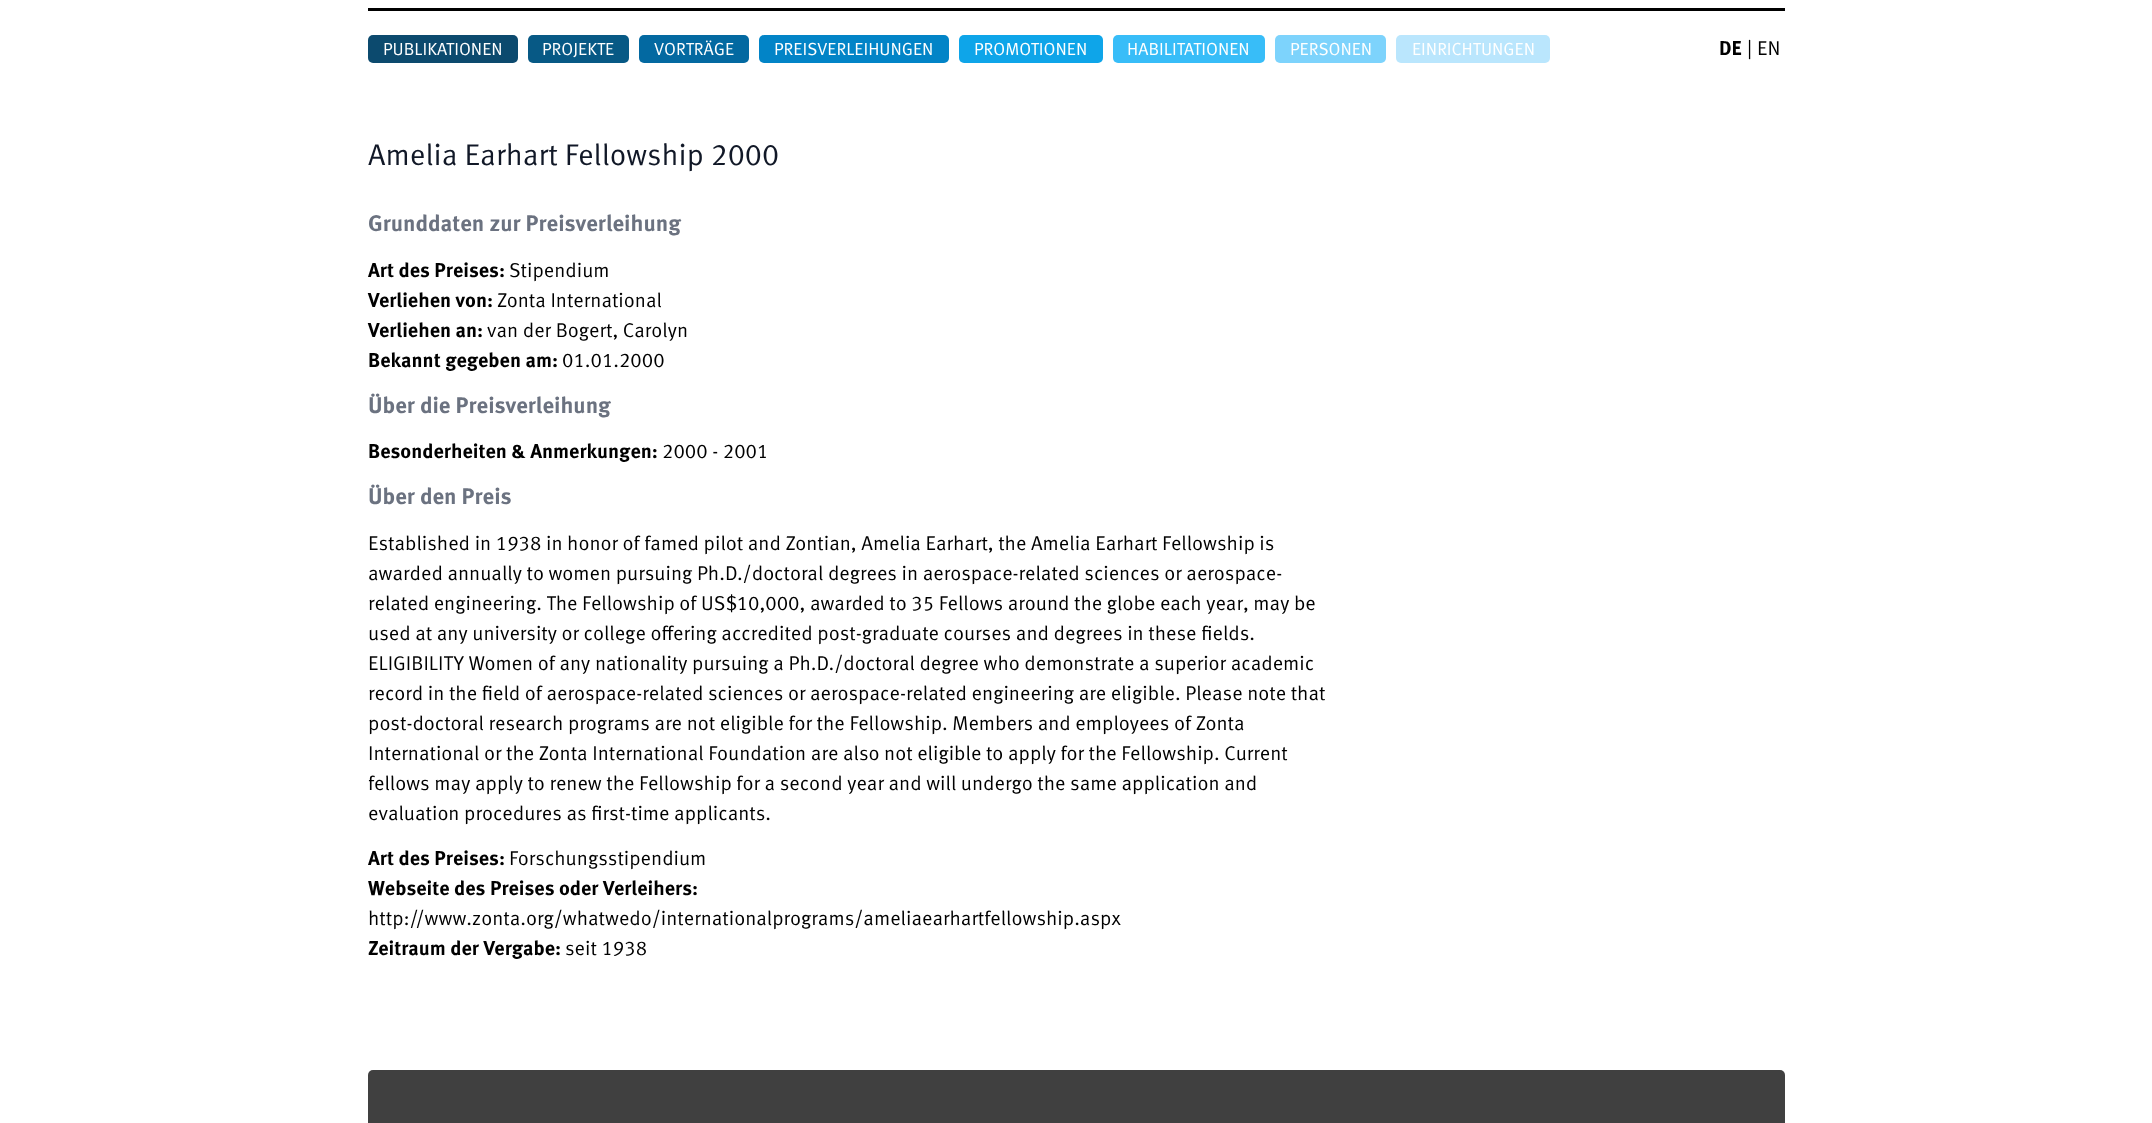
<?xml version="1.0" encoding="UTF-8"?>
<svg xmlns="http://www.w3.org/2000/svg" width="2152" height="1123">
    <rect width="100%" height="100%" fill="#FFFFFF"/>
    <rect x="368" y="8" width="1417" height="3" fill="#000000"/>
    <rect x="368" y="35" width="150" height="28" rx="5" fill="#0C4A6E"/>
    <text x="383" y="55" font-family="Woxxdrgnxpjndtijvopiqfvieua" font-size="17.5" fill="#FFFFFF">PUBLIKATIONEN</text>
    <rect x="528" y="35" width="101" height="28" rx="5" fill="#075985"/>
    <text x="542" y="55" font-family="Woxxdrgnxpjndtijvopiqfvieua" font-size="17.5" fill="#FFFFFF">PROJEKTE</text>
    <rect x="639" y="35" width="110" height="28" rx="5" fill="#0369A1"/>
    <text x="654" y="55" font-family="Woxxdrgnxpjndtijvopiqfvieua" font-size="17.5" fill="#FFFFFF">VORTRÄGE</text>
    <rect x="759" y="35" width="190" height="28" rx="5" fill="#0284C7"/>
    <text x="774" y="55" font-family="Woxxdrgnxpjndtijvopiqfvieua" font-size="17.5" fill="#FFFFFF">PREISVERLEIHUNGEN</text>
    <rect x="959" y="35" width="144" height="28" rx="5" fill="#0EA5E9"/>
    <text x="974" y="55" font-family="Woxxdrgnxpjndtijvopiqfvieua" font-size="17.5" fill="#FFFFFF">PROMOTIONEN</text>
    <rect x="1113" y="35" width="152" height="28" rx="5" fill="#38BDF8"/>
    <text x="1127" y="55" font-family="Woxxdrgnxpjndtijvopiqfvieua" font-size="17.5" fill="#FFFFFF">HABILITATIONEN</text>
    <rect x="1275" y="35" width="111" height="28" rx="5" fill="#7DD3FC"/>
    <text x="1290" y="55" font-family="Woxxdrgnxpjndtijvopiqfvieua" font-size="17.5" fill="#FFFFFF">PERSONEN</text>
    <rect x="1396" y="35" width="154" height="28" rx="5" fill="#BAE6FD"/>
    <text x="1412" y="55" font-family="Woxxdrgnxpjndtijvopiqfvieua" font-size="17.5" fill="#FFFFFF">EINRICHTUNGEN</text>
    <text x="1719" y="55" font-family="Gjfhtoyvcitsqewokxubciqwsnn" font-size="20" font-weight="700" fill="#000000">DE</text>
    <text x="1747" y="55" font-family="Woxxdrgnxpjndtijvopiqfvieua" font-size="20" fill="#000000">|</text>
    <text x="1757" y="55" font-family="Woxxdrgnxpjndtijvopiqfvieua" font-size="20" fill="#000000">EN</text>
    <text x="368" y="165" font-family="Woxxdrgnxpjndtijvopiqfvieua" font-size="30" fill="#111827">Amelia Earhart Fellowship 2000</text>
    <text x="368" y="231" font-family="Gjfhtoyvcitsqewokxubciqwsnn" font-size="22.5" font-weight="700" fill="#6B7280">Grunddaten zur Preisverleihung</text>
    <text x="368" y="277" font-family="Gjfhtoyvcitsqewokxubciqwsnn" font-size="20" font-weight="700" fill="#000000">Art des Preises:</text>
    <text x="509" y="277" font-family="Woxxdrgnxpjndtijvopiqfvieua" font-size="20" fill="#000000">Stipendium</text>
    <text x="368" y="307" font-family="Gjfhtoyvcitsqewokxubciqwsnn" font-size="20" font-weight="700" fill="#000000">Verliehen von:</text>
    <text x="497" y="307" font-family="Woxxdrgnxpjndtijvopiqfvieua" font-size="20" fill="#000000">Zonta International</text>
    <text x="368" y="337" font-family="Gjfhtoyvcitsqewokxubciqwsnn" font-size="20" font-weight="700" fill="#000000">Verliehen an:</text>
    <text x="487" y="337" font-family="Woxxdrgnxpjndtijvopiqfvieua" font-size="20" fill="#000000">van der Bogert, Carolyn</text>
    <text x="368" y="367" font-family="Gjfhtoyvcitsqewokxubciqwsnn" font-size="20" font-weight="700" fill="#000000">Bekannt gegeben am:</text>
    <text x="562" y="367" font-family="Woxxdrgnxpjndtijvopiqfvieua" font-size="20" fill="#000000">01.01.2000</text>
    <text x="368" y="413" font-family="Gjfhtoyvcitsqewokxubciqwsnn" font-size="22.5" font-weight="700" fill="#6B7280">Über die Preisverleihung</text>
    <text x="368" y="458" font-family="Gjfhtoyvcitsqewokxubciqwsnn" font-size="20" font-weight="700" fill="#000000">Besonderheiten &amp; Anmerkungen:</text>
    <text x="662" y="458" font-family="Woxxdrgnxpjndtijvopiqfvieua" font-size="20" fill="#000000">2000 - 2001</text>
    <text x="368" y="504" font-family="Gjfhtoyvcitsqewokxubciqwsnn" font-size="22.5" font-weight="700" fill="#6B7280">Über den Preis</text>
    <text font-family="Woxxdrgnxpjndtijvopiqfvieua" font-size="20" fill="#000000">
        <tspan x="368" y="550">Established in 1938 in honor of famed pilot and Zontian, Amelia Earhart, the Amelia Earhart Fellowship is</tspan>
        <tspan x="368" y="580">awarded annually to women pursuing Ph.D./doctoral degrees in aerospace-related sciences or aerospace-</tspan>
        <tspan x="368" y="610">related engineering. The Fellowship of US$10,000, awarded to 35 Fellows around the globe each year, may be</tspan>
        <tspan x="368" y="640">used at any university or college offering accredited post-graduate courses and degrees in these fields.</tspan>
        <tspan x="368" y="670">ELIGIBILITY Women of any nationality pursuing a Ph.D./doctoral degree who demonstrate a superior academic</tspan>
        <tspan x="368" y="700">record in the field of aerospace-related sciences or aerospace-related engineering are eligible. Please note that</tspan>
        <tspan x="368" y="730">post-doctoral research programs are not eligible for the Fellowship. Members and employees of Zonta</tspan>
        <tspan x="368" y="760">International or the Zonta International Foundation are also not eligible to apply for the Fellowship. Current</tspan>
        <tspan x="368" y="790">fellows may apply to renew the Fellowship for a second year and will undergo the same application and</tspan>
        <tspan x="368" y="820">evaluation procedures as first-time applicants.</tspan>
    </text>
    <text x="368" y="865" font-family="Gjfhtoyvcitsqewokxubciqwsnn" font-size="20" font-weight="700" fill="#000000">Art des Preises:</text>
    <text x="509" y="865" font-family="Woxxdrgnxpjndtijvopiqfvieua" font-size="20" fill="#000000">Forschungsstipendium</text>
    <text x="368" y="895" font-family="Gjfhtoyvcitsqewokxubciqwsnn" font-size="20" font-weight="700" fill="#000000">Webseite des Preises oder Verleihers:</text>
    <text x="368" y="925" font-family="Woxxdrgnxpjndtijvopiqfvieua" font-size="20" fill="#000000">http://www.zonta.org/whatwedo/internationalprograms/ameliaearhartfellowship.aspx</text>
    <text x="368" y="955" font-family="Gjfhtoyvcitsqewokxubciqwsnn" font-size="20" font-weight="700" fill="#000000">Zeitraum der Vergabe:</text>
    <text x="565" y="955" font-family="Woxxdrgnxpjndtijvopiqfvieua" font-size="20" fill="#000000">seit 1938</text>
    <rect x="368" y="1070" width="1417" height="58" rx="5" fill="#404040"/>
</svg>
